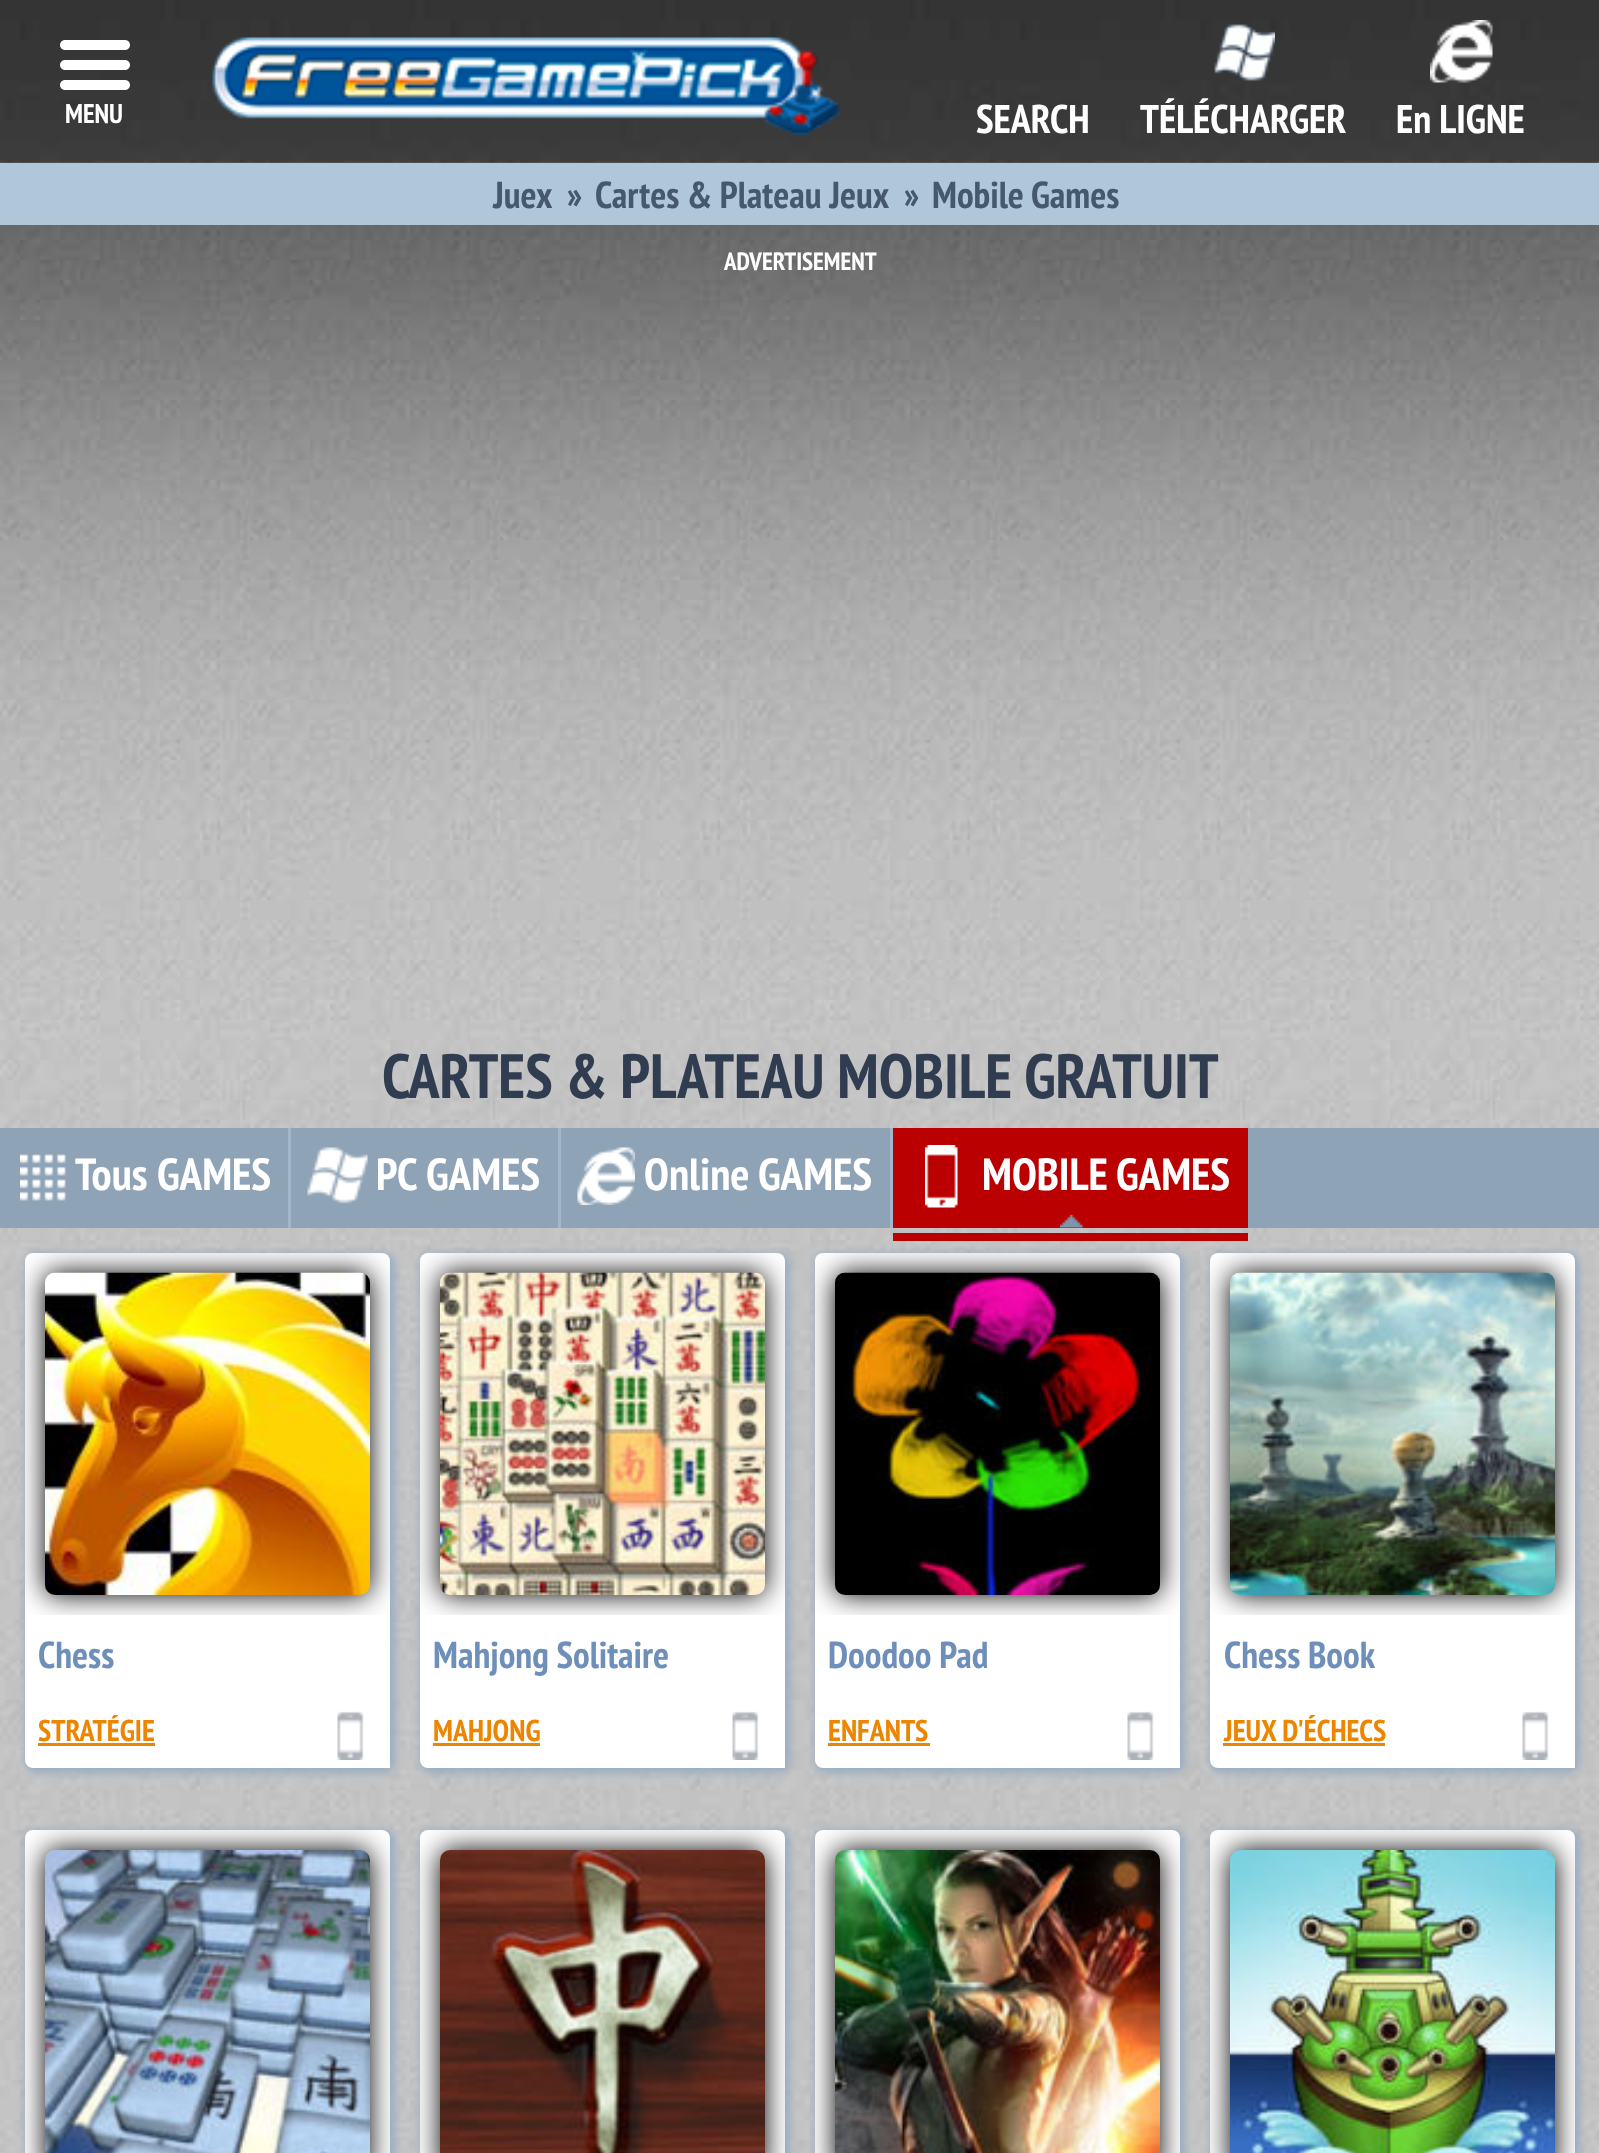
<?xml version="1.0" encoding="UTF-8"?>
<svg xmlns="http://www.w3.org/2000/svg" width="1599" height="2153">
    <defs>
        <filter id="blur1" x="-50%" y="-200%" width="200%" height="500%"><feGaussianBlur stdDeviation="4"/></filter>
        <clipPath id="clip1"><rect x="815" y="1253" width="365" height="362"/></clipPath>
        <filter id="blur2" x="-50%" y="-200%" width="200%" height="500%"><feGaussianBlur stdDeviation="14"/></filter>
        <clipPath id="clip2"><rect x="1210" y="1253" width="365" height="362"/></clipPath>
        <clipPath id="clip3"><rect x="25" y="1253" width="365" height="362"/></clipPath>
        <clipPath id="clip4"><rect x="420" y="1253" width="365" height="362"/></clipPath>
        <clipPath id="clip5"><rect x="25" y="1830" width="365" height="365"/></clipPath>
        <clipPath id="clip6"><rect x="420" y="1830" width="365" height="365"/></clipPath>
        <clipPath id="clip7"><rect x="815" y="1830" width="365" height="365"/></clipPath>
        <clipPath id="clip8"><rect x="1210" y="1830" width="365" height="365"/></clipPath>
    </defs>
    <rect width="100%" height="100%" fill="#FFFFFF"/>
    <image x="0" y="1228" width="1599" height="925" href="img_01.png"/>
    <image x="0" y="0" width="1599" height="1128" href="img_02.png"/>
    <image x="60" y="40" width="70" height="50" href="img_03.png"/>
    <text x="65" y="123" font-family="PT Sans Narrow" font-size="27" font-weight="700" fill="#FFFFFF">MENU</text>
    <image x="212" y="37" width="628" height="98" href="img_04.png"/>
    <text x="976" y="133" font-family="PT Sans Narrow" font-size="40" font-weight="700" fill="#FFFFFF">SEARCH</text>
    <image x="1214" y="24" width="61" height="57" href="img_05.png"/>
    <text x="1140" y="133" font-family="PT Sans Narrow" font-size="40" font-weight="700" fill="#FFFFFF">TÉLÉCHARGER</text>
    <image x="1430" y="20" width="63" height="63" href="img_06.png"/>
    <text x="1396" y="133" font-family="PT Sans Narrow" font-size="40" font-weight="700" fill="#FFFFFF">En LIGNE</text>
    <rect x="0" y="163" width="1599" height="62" fill="#B0C7D9"/>
    <text x="493" y="208" font-family="PT Sans Narrow" font-size="37.5" font-weight="700" fill="#46586B">Juex</text>
    <text x="567" y="208" font-family="PT Sans Narrow" font-size="37.5" font-weight="700" fill="#46586B">»</text>
    <text x="595" y="208" font-family="PT Sans Narrow" font-size="37.5" font-weight="700" fill="#46586B">Cartes &amp; Plateau Jeux</text>
    <text x="904" y="208" font-family="PT Sans Narrow" font-size="37.5" font-weight="700" fill="#46586B">»</text>
    <text x="932" y="208" font-family="PT Sans Narrow" font-size="37.5" font-weight="700" fill="#46586B">Mobile Games</text>
    <text x="724" y="270" font-family="PT Sans Narrow" font-size="25" font-weight="700" fill="#FFFFFF">ADVERTISEMENT</text>
    <text x="382" y="1098" font-family="PT Sans Narrow" font-size="62.5" font-weight="700" fill="#303C50">CARTES &amp; PLATEAU MOBILE GRATUIT</text>
    <rect x="0" y="1128" width="1599" height="100" fill="#8FA3B7"/>
    <rect x="288" y="1128" width="3" height="100" fill="#A4B6C9"/>
    <image x="20" y="1154" width="46" height="47" href="img_07.png"/>
    <text x="75" y="1190" font-family="PT Sans Narrow" font-size="45" font-weight="700" fill="#FFFFFF">Tous</text>
    <text x="157" y="1190" font-family="PT Sans Narrow" font-size="45" font-weight="700" fill="#FFFFFF">GAMES</text>
    <rect x="558" y="1128" width="3" height="100" fill="#A4B6C9"/>
    <image x="307" y="1147" width="61" height="57" href="img_08.png"/>
    <text x="376" y="1190" font-family="PT Sans Narrow" font-size="45" font-weight="700" fill="#FFFFFF">PC</text>
    <text x="426" y="1190" font-family="PT Sans Narrow" font-size="45" font-weight="700" fill="#FFFFFF">GAMES</text>
    <rect x="890" y="1128" width="3" height="100" fill="#A4B6C9"/>
    <image x="577" y="1147" width="58" height="58" href="img_09.png"/>
    <text x="644" y="1190" font-family="PT Sans Narrow" font-size="45" font-weight="700" fill="#FFFFFF">Online</text>
    <text x="758" y="1190" font-family="PT Sans Narrow" font-size="45" font-weight="700" fill="#FFFFFF">GAMES</text>
    <rect x="893" y="1128" width="355" height="100" fill="#BA0000"/>
    <image x="1060" y="1215" width="23" height="13" href="img_10.png"/>
    <image x="925" y="1145" width="33" height="63" href="img_11.png"/>
    <text x="982" y="1190" font-family="PT Sans Narrow" font-size="45" font-weight="700" fill="#FFFFFF">MOBILE</text>
    <text x="1116" y="1190" font-family="PT Sans Narrow" font-size="45" font-weight="700" fill="#FFFFFF">GAMES</text>
    <rect x="815" y="1253" width="370" height="520" rx="10" fill="#94AAC1" fill-opacity="0.9" filter="url(#blur1)"/>
    <rect x="815" y="1253" width="365" height="515" rx="8" fill="#FFFFFF"/>
    <g clip-path="url(#clip1)">
        <rect x="835" y="1273" width="325" height="322" rx="10" fill="#000000" filter="url(#blur2)"/>
    </g>
    <rect x="1210" y="1253" width="370" height="520" rx="10" fill="#94AAC1" fill-opacity="0.9" filter="url(#blur1)"/>
    <rect x="1210" y="1253" width="365" height="515" rx="8" fill="#FFFFFF"/>
    <g clip-path="url(#clip2)">
        <rect x="1230" y="1273" width="325" height="322" rx="10" fill="#000000" filter="url(#blur2)"/>
    </g>
    <rect x="893" y="1233" width="355" height="8" fill="#BA0000"/>
    <rect x="25" y="1253" width="370" height="520" rx="10" fill="#94AAC1" fill-opacity="0.9" filter="url(#blur1)"/>
    <rect x="25" y="1253" width="365" height="515" rx="8" fill="#FFFFFF"/>
    <g clip-path="url(#clip3)">
        <rect x="45" y="1273" width="325" height="322" rx="10" fill="#000000" filter="url(#blur2)"/>
    </g>
    <image x="45" y="1272" width="325" height="323" href="img_12.png"/>
    <text x="38" y="1668" font-family="PT Sans Narrow" font-size="37.5" font-weight="700" fill="#6F8FBB">Chess</text>
    <text x="38" y="1741" font-family="PT Sans Narrow" font-size="30" font-weight="700" fill="#EC8500">STRATÉGIE</text>
    <rect x="38" y="1743" width="117" height="3" fill="#EC8500"/>
    <rect x="382" y="1760" width="8" height="8" fill="#FFFFFF"/>
    <image x="337" y="1711" width="27" height="49" href="img_13.png"/>
    <rect x="420" y="1253" width="370" height="520" rx="10" fill="#94AAC1" fill-opacity="0.9" filter="url(#blur1)"/>
    <rect x="420" y="1253" width="365" height="515" rx="8" fill="#FFFFFF"/>
    <g clip-path="url(#clip4)">
        <rect x="440" y="1273" width="325" height="322" rx="10" fill="#000000" filter="url(#blur2)"/>
    </g>
    <image x="440" y="1272" width="325" height="323" href="img_14.png"/>
    <text x="433" y="1668" font-family="PT Sans Narrow" font-size="37.5" font-weight="700" fill="#6F8FBB">Mahjong Solitaire</text>
    <text x="433" y="1741" font-family="PT Sans Narrow" font-size="30" font-weight="700" fill="#EC8500">MAHJONG</text>
    <rect x="433" y="1743" width="107" height="3" fill="#EC8500"/>
    <rect x="777" y="1760" width="8" height="8" fill="#FFFFFF"/>
    <image x="732" y="1711" width="27" height="49" href="img_15.png"/>
    <image x="835" y="1272" width="325" height="323" href="img_16.png"/>
    <text x="828" y="1668" font-family="PT Sans Narrow" font-size="37.5" font-weight="700" fill="#6F8FBB">Doodoo Pad</text>
    <text x="828" y="1741" font-family="PT Sans Narrow" font-size="30" font-weight="700" fill="#EC8500">ENFANTS</text>
    <rect x="828" y="1743" width="102" height="3" fill="#EC8500"/>
    <rect x="1172" y="1760" width="8" height="8" fill="#FFFFFF"/>
    <image x="1127" y="1711" width="27" height="49" href="img_13.png"/>
    <image x="1230" y="1272" width="325" height="323" href="img_17.png"/>
    <text x="1224" y="1668" font-family="PT Sans Narrow" font-size="37.5" font-weight="700" fill="#6F8FBB">Chess Book</text>
    <text x="1224" y="1741" font-family="PT Sans Narrow" font-size="30" font-weight="700" fill="#EC8500">JEUX D'ÉCHECS</text>
    <rect x="1223" y="1743" width="162" height="3" fill="#EC8500"/>
    <rect x="1567" y="1760" width="8" height="8" fill="#FFFFFF"/>
    <image x="1522" y="1711" width="27" height="49" href="img_15.png"/>
    <rect x="25" y="1830" width="370" height="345" rx="10" fill="#94AAC1" fill-opacity="0.9" filter="url(#blur1)"/>
    <rect x="25" y="1830" width="365" height="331" rx="8" fill="#FFFFFF"/>
    <g clip-path="url(#clip5)">
        <rect x="45" y="1850" width="325" height="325" rx="10" fill="#000000" filter="url(#blur2)"/>
    </g>
    <image x="45" y="1850" width="325" height="303" href="img_18.png"/>
    <rect x="420" y="1830" width="370" height="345" rx="10" fill="#94AAC1" fill-opacity="0.9" filter="url(#blur1)"/>
    <rect x="420" y="1830" width="365" height="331" rx="8" fill="#FFFFFF"/>
    <g clip-path="url(#clip6)">
        <rect x="440" y="1850" width="325" height="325" rx="10" fill="#000000" filter="url(#blur2)"/>
    </g>
    <image x="440" y="1850" width="325" height="303" href="img_19.png"/>
    <rect x="815" y="1830" width="370" height="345" rx="10" fill="#94AAC1" fill-opacity="0.9" filter="url(#blur1)"/>
    <rect x="815" y="1830" width="365" height="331" rx="8" fill="#FFFFFF"/>
    <g clip-path="url(#clip7)">
        <rect x="835" y="1850" width="325" height="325" rx="10" fill="#000000" filter="url(#blur2)"/>
    </g>
    <image x="835" y="1850" width="325" height="303" href="img_20.png"/>
    <rect x="1210" y="1830" width="370" height="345" rx="10" fill="#94AAC1" fill-opacity="0.9" filter="url(#blur1)"/>
    <rect x="1210" y="1830" width="365" height="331" rx="8" fill="#FFFFFF"/>
    <g clip-path="url(#clip8)">
        <rect x="1230" y="1850" width="325" height="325" rx="10" fill="#000000" filter="url(#blur2)"/>
    </g>
    <image x="1230" y="1850" width="325" height="303" href="img_21.png"/>
</svg>
